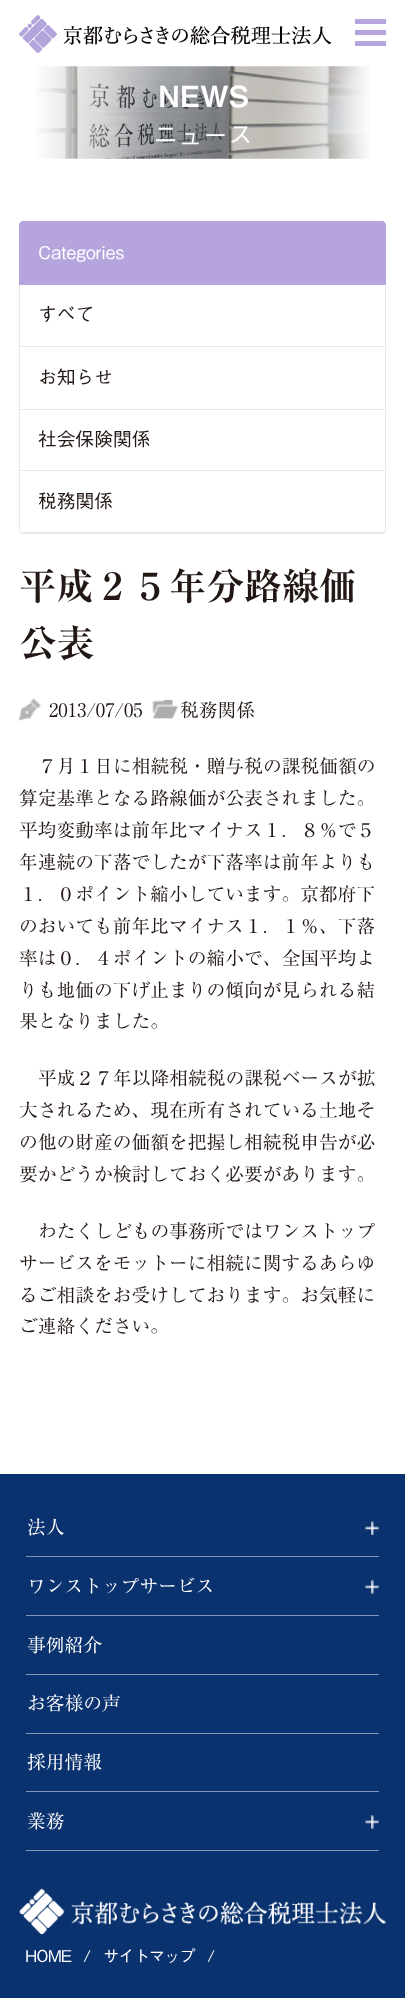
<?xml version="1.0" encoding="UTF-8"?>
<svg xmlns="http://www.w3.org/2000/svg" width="405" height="1998">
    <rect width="100%" height="100%" fill="#FFFFFF"/>
    <image x="18" y="15" width="314" height="38" href="img_01.png"/>
    <rect x="355" y="19" width="31" height="5" fill="#B6A5DC"/>
    <rect x="355" y="30" width="31" height="5" fill="#B6A5DC"/>
    <rect x="355" y="41" width="31" height="5" fill="#B6A5DC"/>
    <image x="36" y="66" width="334" height="93" href="img_02.png"/>
    <text x="158" y="107" font-family="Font" font-size="29" font-weight="600" fill="#FFFFFF">NEWS</text>
    <text x="153" y="144" font-family="'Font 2'" font-size="25" fill="#FFFFFF">ニュース</text>
    <path d="M 23 221.5 H 382 C 384 221.5 385.5 223 385.5 225 V 284.5 H 19.5 V 225 C 19.5 223 21 221.5 23 221.5 Z" fill="#B6A5DC" stroke="#B6A5DC"/>
    <text x="38" y="259" font-family="'Font 2'" font-size="17.5" fill="#FFFFFF">Categories</text>
    <rect x="385" y="285" width="1" height="186" fill="#E9E9E9"/>
    <rect x="19" y="346" width="367" height="1" fill="#E9E9E9"/>
    <rect x="19" y="285" width="1" height="63" fill="#E9E9E9"/>
    <text x="38" y="321" font-family="'Font 2'" font-size="18.75" fill="#231815">すべて</text>
    <rect x="19" y="409" width="367" height="1" fill="#E9E9E9"/>
    <rect x="19" y="348" width="1" height="62" fill="#E9E9E9"/>
    <text x="38" y="384" font-family="'Font 2'" font-size="18.75" fill="#231815">お知らせ</text>
    <rect x="19" y="470" width="367" height="1" fill="#E9E9E9"/>
    <rect x="19" y="410" width="1" height="61" fill="#E9E9E9"/>
    <text x="38" y="446" font-family="'Font 2'" font-size="18.75" fill="#231815">社会保険関係</text>
    <path d="M 19 471 H 386 V 530 C 386 532 385 534 382 534 H 22 C 20 534 19 532 19 530 Z M 20 471 H 385 V 530 C 385 531 384 532 382 532 H 22 C 21 532 20 531 20 530 Z" fill="#E9E9E9" fill-rule="evenodd"/>
    <text x="38" y="508" font-family="'Font 2'" font-size="18.75" fill="#231815">税務関係</text>
    <text font-family="Font" font-size="37.5" font-weight="500" fill="#231815">
        <tspan x="19" y="600">平成２５年分路線価</tspan>
        <tspan x="19" y="657">公表</tspan>
    </text>
    <image x="18" y="698" width="24" height="23" href="img_03.png"/>
    <text x="49" y="717" font-family="Font" font-size="18.75" fill="#231815">2013/07/05</text>
    <image x="152" y="700" width="26" height="19" href="img_04.png"/>
    <text x="180" y="717" font-family="Font" font-size="18.75" fill="#231815">税務関係</text>
    <text x="38" y="773" font-family="Font" font-size="18.75" fill="#231815">７月１日に相続税・贈与税の課税価額の</text>
    <text font-family="Font" font-size="18.75" fill="#231815">
        <tspan x="19" y="805">算定基準となる路線価が公表されました。</tspan>
        <tspan x="19" y="837">平均変動率は前年比マイナス１．８％で５</tspan>
        <tspan x="19" y="869">年連続の下落でしたが下落率は前年よりも</tspan>
        <tspan x="19" y="901">１．０ポイント縮小しています。京都府下</tspan>
        <tspan x="19" y="933">のおいても前年比マイナス１．１％、下落</tspan>
        <tspan x="19" y="965">率は０．４ポイントの縮小で、全国平均よ</tspan>
        <tspan x="19" y="997">りも地価の下げ止まりの傾向が見られる結</tspan>
        <tspan x="19" y="1028">果となりました。</tspan>
    </text>
    <text x="38" y="1085" font-family="Font" font-size="18.75" fill="#231815">平成２７年以降相続税の課税ベースが拡</text>
    <text font-family="Font" font-size="18.75" fill="#231815">
        <tspan x="19" y="1117">大されるため、現在所有されている土地そ</tspan>
        <tspan x="19" y="1149">の他の財産の価額を把握し相続税申告が必</tspan>
        <tspan x="19" y="1181">要かどうか検討しておく必要があります。</tspan>
    </text>
    <text x="38" y="1238" font-family="Font" font-size="18.75" fill="#231815">わたくしどもの事務所ではワンストップ</text>
    <text font-family="Font" font-size="18.75" fill="#231815">
        <tspan x="19" y="1270">サービスをモットーに相続に関するあらゆ</tspan>
        <tspan x="19" y="1302">るご相談をお受けしております。お気軽に</tspan>
        <tspan x="19" y="1333">ご連絡ください。</tspan>
    </text>
    <rect x="0" y="1474" width="405" height="524" fill="#0A326E"/>
    <rect x="26" y="1556" width="353" height="1" fill="#8498B6"/>
    <image x="365" y="1521" width="14" height="14" href="img_05.png"/>
    <text x="27" y="1534" font-family="Font" font-size="18.75" fill="#FFFFFF">法人</text>
    <rect x="26" y="1615" width="353" height="1" fill="#8498B6"/>
    <image x="365" y="1580" width="14" height="14" href="img_06.png"/>
    <text x="27" y="1593" font-family="Font" font-size="18.75" fill="#FFFFFF">ワンストップサービス</text>
    <rect x="26" y="1674" width="353" height="1" fill="#8498B6"/>
    <text x="27" y="1652" font-family="Font" font-size="18.75" fill="#FFFFFF">事例紹介</text>
    <rect x="26" y="1733" width="353" height="1" fill="#8498B6"/>
    <text x="27" y="1710" font-family="Font" font-size="18.75" fill="#FFFFFF">お客様の声</text>
    <rect x="26" y="1791" width="353" height="1" fill="#8498B6"/>
    <text x="27" y="1769" font-family="Font" font-size="18.75" fill="#FFFFFF">採用情報</text>
    <rect x="26" y="1850" width="353" height="1" fill="#8498B6"/>
    <image x="365" y="1815" width="14" height="14" href="img_06.png"/>
    <text x="27" y="1828" font-family="Font" font-size="18.75" fill="#FFFFFF">業務</text>
    <image x="19" y="1888" width="367" height="47" href="img_07.png"/>
    <text x="25" y="1962" font-family="'Font 2'" font-size="16.25" letter-spacing="-1" fill="#FFFFFF">HOME</text>
    <text x="83" y="1962" font-family="'Font 2'" font-size="16.25" fill="#FFFFFF">/</text>
    <text x="103" y="1962" font-family="'Font 2'" font-size="16.25" letter-spacing="-1" fill="#FFFFFF">サイトマップ</text>
    <text x="207" y="1962" font-family="'Font 2'" font-size="16.25" fill="#FFFFFF">/</text>
</svg>
